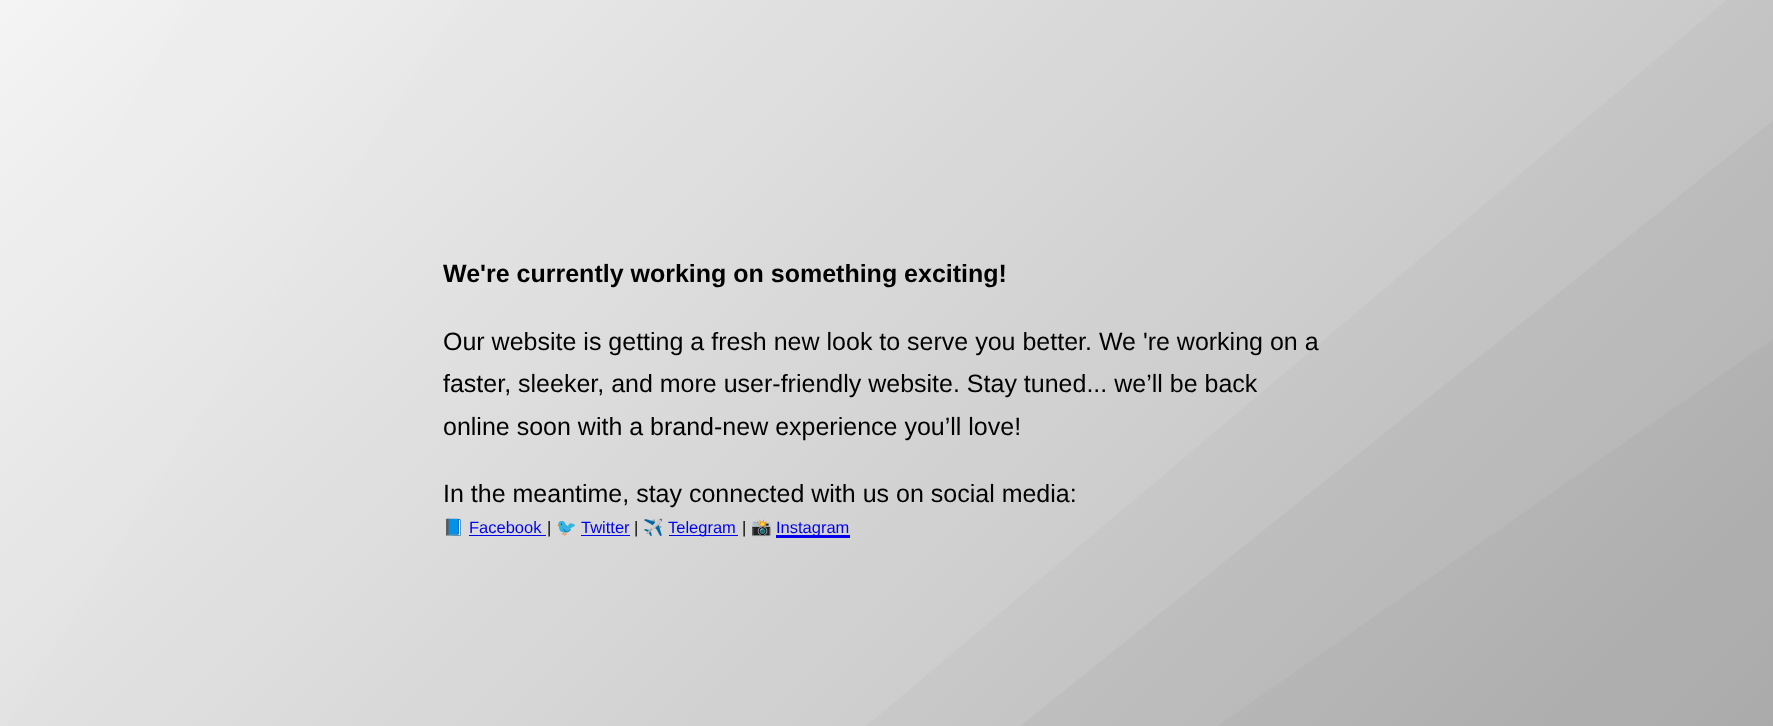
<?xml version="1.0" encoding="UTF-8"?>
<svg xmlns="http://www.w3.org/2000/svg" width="1773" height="726">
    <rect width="100%" height="100%" fill="#FFFFFF"/>
    <image x="0" y="0" width="1773" height="726" href="img_01.png"/>
    <text x="443" y="282" font-family="Liberation Sans" font-size="25" font-weight="700" fill="#000000">We're currently working on something exciting!</text>
    <text font-family="Liberation Sans" font-size="25" fill="#000000">
        <tspan x="443" y="350">Our website is getting a fresh new look to serve you better. We 're working on a</tspan>
        <tspan x="443" y="392">faster, sleeker, and more user-friendly website. Stay tuned... we’ll be back</tspan>
        <tspan x="443" y="435">online soon with a brand-new experience you’ll love!</tspan>
    </text>
    <text x="443" y="502" font-family="Liberation Sans" font-size="25" fill="#000000">In the meantime, stay connected with us on social media:</text>
    <text x="443" y="533" font-family="Noto Color Emoji" font-size="16.5" fill="#000000">📘</text>
    <text x="469" y="533" font-family="Liberation Sans" font-size="16.5" fill="#0000EE">Facebook</text>
    <text x="547" y="533" font-family="Liberation Sans" font-size="16.5" fill="#000000">|</text>
    <rect x="469" y="535" width="77" height="1" fill="#0000EE"/>
    <text x="556" y="533" font-family="Noto Color Emoji" font-size="16.5" fill="#000000">🐦</text>
    <text x="581" y="533" font-family="Liberation Sans" font-size="16.5" fill="#0000EE">Twitter</text>
    <rect x="581" y="535" width="49" height="1" fill="#0000EE"/>
    <text x="634" y="533" font-family="Liberation Sans" font-size="16.5" fill="#000000">|</text>
    <text x="643" y="533" font-family="Noto Color Emoji" font-size="16.5" fill="#000000">✈️</text>
    <rect x="669" y="535" width="69" height="1" fill="#0000EE"/>
    <text x="668" y="533" font-family="Liberation Sans" font-size="16.5" fill="#0000EE">Telegram</text>
    <text x="742" y="533" font-family="Liberation Sans" font-size="16.5" fill="#000000">|</text>
    <text x="751" y="533" font-family="Noto Color Emoji" font-size="16.5" fill="#000000">📸</text>
    <rect x="776" y="535" width="74" height="3" fill="#0000EE"/>
    <text x="776" y="533" font-family="Liberation Sans" font-size="16.5" fill="#0000EE">Instagram</text>
</svg>
